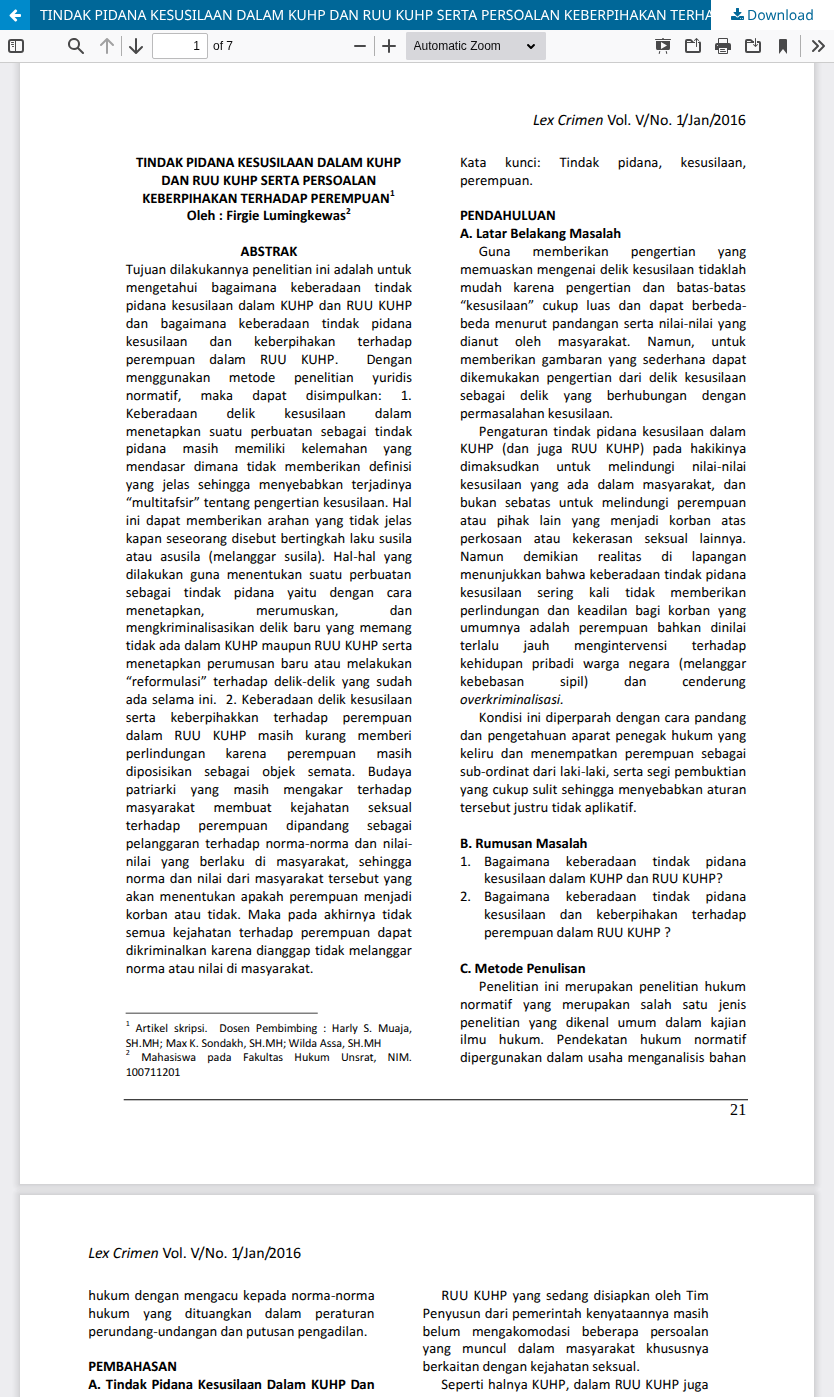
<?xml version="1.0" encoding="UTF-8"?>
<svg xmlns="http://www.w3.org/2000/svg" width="834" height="1397">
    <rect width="100%" height="100%" fill="#FFFFFF"/>
    <rect x="30" y="0" width="681" height="30" fill="#006798"/>
    <rect x="0" y="0" width="30" height="30" fill="#008ACB"/>
    <image x="9" y="9" width="12" height="13" href="img_01.png"/>
    <text x="40" y="20" font-family="Noto Sans" font-size="14" fill="#FFFFFF">TINDAK PIDANA KESUSILAAN DALAM KUHP DAN RUU KUHP SERTA PERSOALAN KEBERPIHAKAN TERHA</text>
    <image x="731" y="8" width="13" height="12" href="img_02.png"/>
    <text x="747" y="20" font-family="Noto Sans" font-size="14" fill="#006798">Download</text>
    <image x="0" y="30" width="834" height="1367" href="img_03.png"/>
</svg>
